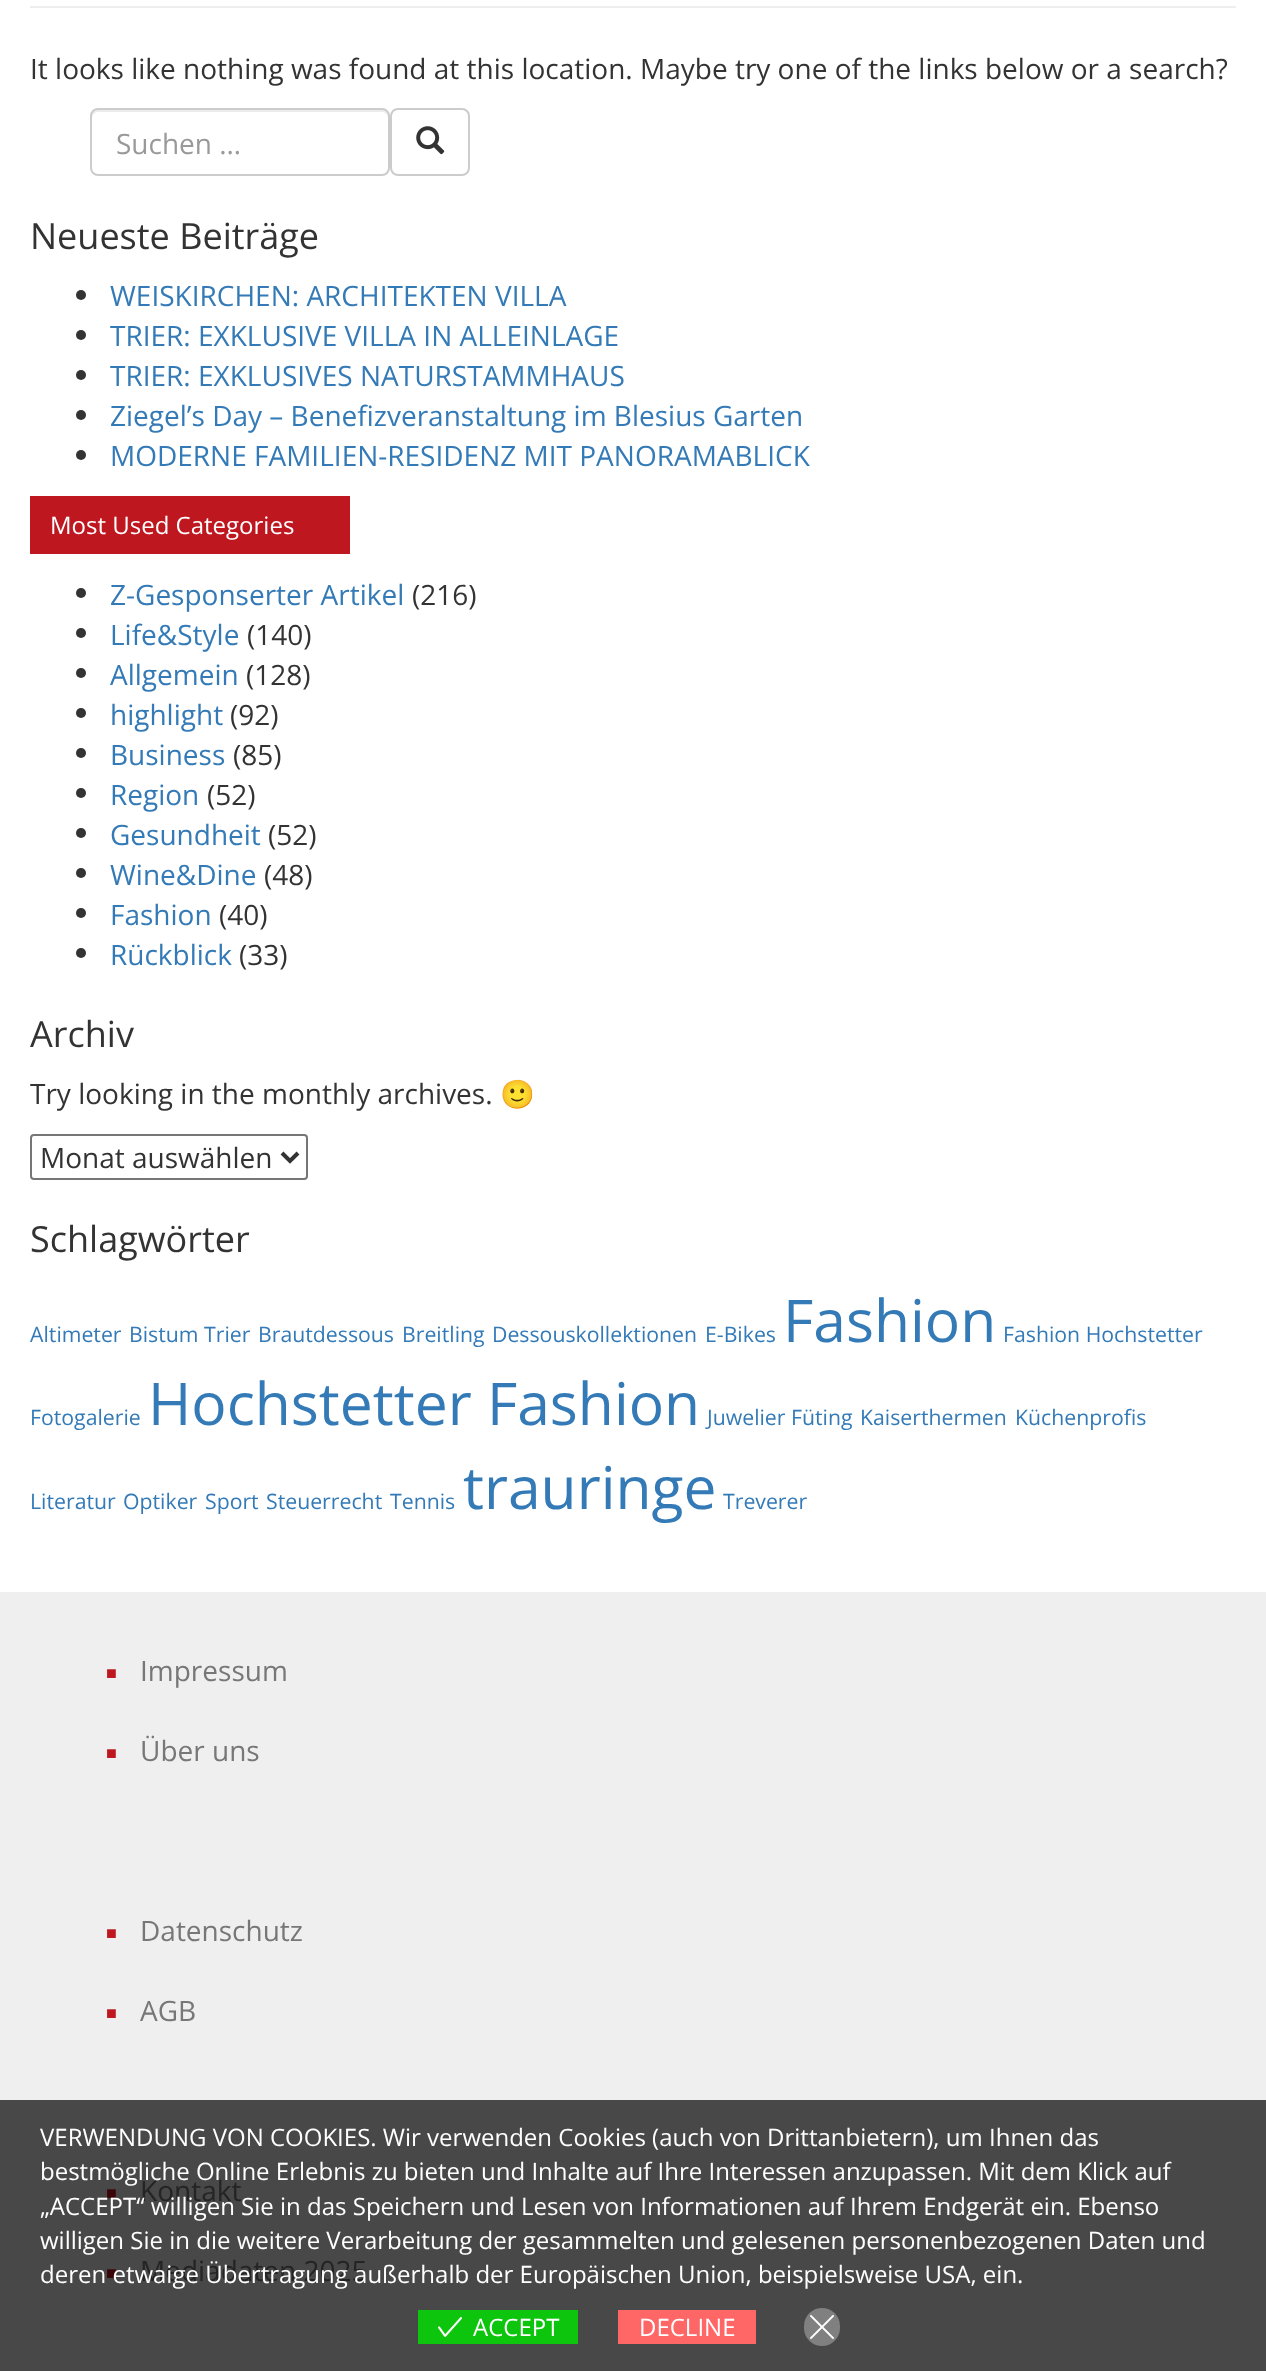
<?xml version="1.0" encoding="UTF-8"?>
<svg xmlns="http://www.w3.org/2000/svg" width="1266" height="2371">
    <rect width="100%" height="100%" fill="#FFFFFF"/>
    <rect x="30" y="6" width="1206" height="2" fill="#EEEEEE"/>
    <text x="30" y="79" font-family="Open Sans" font-size="28" fill="#333333">It looks like nothing was found at this location. Maybe try one of the links below or a search?</text>
    <path d="M 98 112 H 382 C 385 112 388 115 388 118 V 116 C 388 113 385 110 382 110 H 98 C 95 110 92 113 92 116 V 118 C 92 115 95 112 98 112 Z" fill="#ECECEC"/>
    <rect x="91" y="109" width="298" height="66" rx="7" fill="none" stroke="#CCCCCC" stroke-width="2"/>
    <text x="116" y="154" font-family="Open Sans" font-size="28" fill="#999999">Suchen …</text>
    <rect x="391" y="109" width="78" height="66" rx="7" fill="none" stroke="#CCCCCC" stroke-width="2"/>
    <image x="416" y="126" width="29" height="29" href="img_01.png"/>
    <text x="30" y="249" font-family="Open Sans" font-size="36" fill="#333333">Neueste Beiträge</text>
    <circle cx="81" cy="295" r="5" fill="#333333"/>
    <text x="110" y="306" font-family="Open Sans" font-size="28" fill="#337AB7">WEISKIRCHEN: ARCHITEKTEN VILLA</text>
    <circle cx="81" cy="335" r="5" fill="#333333"/>
    <text x="110" y="346" font-family="Open Sans" font-size="28" fill="#337AB7">TRIER: EXKLUSIVE VILLA IN ALLEINLAGE</text>
    <circle cx="81" cy="375" r="5" fill="#333333"/>
    <text x="110" y="386" font-family="Open Sans" font-size="28" fill="#337AB7">TRIER: EXKLUSIVES NATURSTAMMHAUS</text>
    <circle cx="81" cy="415" r="5" fill="#333333"/>
    <text x="110" y="426" font-family="Open Sans" font-size="28" fill="#337AB7">Ziegel’s Day – Benefizveranstaltung im Blesius Garten</text>
    <circle cx="81" cy="455" r="5" fill="#333333"/>
    <text x="110" y="466" font-family="Open Sans" font-size="28" fill="#337AB7">MODERNE FAMILIEN-RESIDENZ MIT PANORAMABLICK</text>
    <rect x="30" y="496" width="320" height="58" fill="#BE1720"/>
    <text x="50" y="534" font-family="Open Sans" font-size="24" fill="#FFFFFF">Most Used Categories</text>
    <circle cx="81" cy="593" r="5" fill="#333333"/>
    <text x="110" y="605" font-family="Open Sans" font-size="28" fill="#337AB7">Z-Gesponserter Artikel</text>
    <text x="412" y="605" font-family="Open Sans" font-size="28" fill="#333333">(216)</text>
    <circle cx="81" cy="633" r="5" fill="#333333"/>
    <text x="110" y="645" font-family="Open Sans" font-size="28" fill="#337AB7">Life&amp;Style</text>
    <text x="247" y="645" font-family="Open Sans" font-size="28" fill="#333333">(140)</text>
    <circle cx="81" cy="673" r="5" fill="#333333"/>
    <text x="110" y="685" font-family="Open Sans" font-size="28" fill="#337AB7">Allgemein</text>
    <text x="246" y="685" font-family="Open Sans" font-size="28" fill="#333333">(128)</text>
    <circle cx="81" cy="713" r="5" fill="#333333"/>
    <text x="110" y="725" font-family="Open Sans" font-size="28" fill="#337AB7">highlight</text>
    <text x="230" y="725" font-family="Open Sans" font-size="28" fill="#333333">(92)</text>
    <circle cx="81" cy="753" r="5" fill="#333333"/>
    <text x="110" y="765" font-family="Open Sans" font-size="28" fill="#337AB7">Business</text>
    <text x="233" y="765" font-family="Open Sans" font-size="28" fill="#333333">(85)</text>
    <circle cx="81" cy="793" r="5" fill="#333333"/>
    <text x="110" y="805" font-family="Open Sans" font-size="28" fill="#337AB7">Region</text>
    <text x="207" y="805" font-family="Open Sans" font-size="28" fill="#333333">(52)</text>
    <circle cx="81" cy="833" r="5" fill="#333333"/>
    <text x="110" y="845" font-family="Open Sans" font-size="28" fill="#337AB7">Gesundheit</text>
    <text x="268" y="845" font-family="Open Sans" font-size="28" fill="#333333">(52)</text>
    <circle cx="81" cy="873" r="5" fill="#333333"/>
    <text x="110" y="885" font-family="Open Sans" font-size="28" fill="#337AB7">Wine&amp;Dine</text>
    <text x="264" y="885" font-family="Open Sans" font-size="28" fill="#333333">(48)</text>
    <circle cx="81" cy="913" r="5" fill="#333333"/>
    <text x="110" y="925" font-family="Open Sans" font-size="28" fill="#337AB7">Fashion</text>
    <text x="219" y="925" font-family="Open Sans" font-size="28" fill="#333333">(40)</text>
    <circle cx="81" cy="953" r="5" fill="#333333"/>
    <text x="110" y="965" font-family="Open Sans" font-size="28" fill="#337AB7">Rückblick</text>
    <text x="239" y="965" font-family="Open Sans" font-size="28" fill="#333333">(33)</text>
    <text x="30" y="1047" font-family="Open Sans" font-size="36" fill="#333333">Archiv</text>
    <text x="30" y="1104" font-family="Open Sans" font-size="28" fill="#333333">Try looking in the monthly archives.</text>
    <text x="500" y="1104" font-family="Noto Color Emoji" font-size="28" fill="#333333">🙂</text>
    <rect x="31" y="1135" width="276" height="44" rx="3" fill="none" stroke="#767676" stroke-width="2"/>
    <path d="M 282 1153 L 290 1161 L 298 1153" fill="none" stroke="#333333" stroke-width="4"/>
    <text x="40" y="1168" font-family="Open Sans" font-size="28" fill="#333333">Monat auswählen</text>
    <text x="30" y="1252" font-family="Open Sans" font-size="36" fill="#333333">Schlagwörter</text>
    <text x="30" y="1342" font-family="Open Sans" font-size="21.25" fill="#337AB7">Altimeter</text>
    <text x="129" y="1342" font-family="Open Sans" font-size="21.25" fill="#337AB7">Bistum Trier</text>
    <text x="258" y="1342" font-family="Open Sans" font-size="21.25" fill="#337AB7">Brautdessous</text>
    <text x="402" y="1342" font-family="Open Sans" font-size="21.25" fill="#337AB7">Breitling</text>
    <text x="492" y="1342" font-family="Open Sans" font-size="21.25" fill="#337AB7">Dessouskollektionen</text>
    <text x="705" y="1342" font-family="Open Sans" font-size="21.25" fill="#337AB7">E-Bikes</text>
    <text x="783" y="1342" font-family="Open Sans" font-size="58.75" fill="#337AB7">Fashion</text>
    <text x="1003" y="1342" font-family="Open Sans" font-size="21.25" fill="#337AB7">Fashion Hochstetter</text>
    <text x="30" y="1425" font-family="Open Sans" font-size="21.25" fill="#337AB7">Fotogalerie</text>
    <text x="148" y="1425" font-family="Open Sans" font-size="58.75" fill="#337AB7">Hochstetter Fashion</text>
    <text x="707" y="1425" font-family="Open Sans" font-size="21.25" fill="#337AB7">Juwelier Füting</text>
    <text x="860" y="1425" font-family="Open Sans" font-size="21.25" fill="#337AB7">Kaiserthermen</text>
    <text x="1015" y="1425" font-family="Open Sans" font-size="21.25" fill="#337AB7">Küchenprofis</text>
    <text x="30" y="1509" font-family="Open Sans" font-size="21.25" fill="#337AB7">Literatur</text>
    <text x="123" y="1509" font-family="Open Sans" font-size="21.25" fill="#337AB7">Optiker</text>
    <text x="205" y="1509" font-family="Open Sans" font-size="21.25" fill="#337AB7">Sport</text>
    <text x="266" y="1509" font-family="Open Sans" font-size="21.25" fill="#337AB7">Steuerrecht</text>
    <text x="390" y="1509" font-family="Open Sans" font-size="21.25" fill="#337AB7">Tennis</text>
    <text x="463" y="1509" font-family="Open Sans" font-size="58.75" fill="#337AB7">trauringe</text>
    <text x="723" y="1509" font-family="Open Sans" font-size="21.25" fill="#337AB7">Treverer</text>
    <rect x="0" y="1592" width="1266" height="508" fill="#EFEFEF"/>
    <rect x="0" y="2100" width="1266" height="271" fill="#484848"/>
    <text x="106" y="1679" font-family="Liberation Serif" font-size="18" fill="#BE1720">■</text>
    <text x="140" y="1681" font-family="Open Sans" font-size="28" fill="#777777">Impressum</text>
    <text x="106" y="1759" font-family="Liberation Serif" font-size="18" fill="#BE1720">■</text>
    <text x="140" y="1761" font-family="Open Sans" font-size="28" fill="#777777">Über uns</text>
    <text x="106" y="1939" font-family="Liberation Serif" font-size="18" fill="#BE1720">■</text>
    <text x="140" y="1941" font-family="Open Sans" font-size="28" fill="#777777">Datenschutz</text>
    <text x="106" y="2019" font-family="Liberation Serif" font-size="18" fill="#BE1720">■</text>
    <text x="140" y="2021" font-family="Open Sans" font-size="28" fill="#777777">AGB</text>
    <text x="106" y="2199" font-family="Liberation Serif" font-size="18" fill="#39070A">■</text>
    <text x="140" y="2201" font-family="Open Sans" font-size="28" fill="#242424">Kontakt</text>
    <text x="106" y="2279" font-family="Liberation Serif" font-size="18" fill="#39070A">■</text>
    <text x="140" y="2281" font-family="Open Sans" font-size="28" fill="#242424">Mediadaten 2025</text>
    <text font-family="Open Sans" font-size="24" fill="#FFFFFF">
        <tspan x="40" y="2146">VERWENDUNG VON COOKIES. Wir verwenden Cookies (auch von Drittanbietern), um Ihnen das</tspan>
        <tspan x="40" y="2180">bestmögliche Online Erlebnis zu bieten und Inhalte auf Ihre Interessen anzupassen. Mit dem Klick auf</tspan>
        <tspan x="40" y="2215">„ACCEPT“ willigen Sie in das Speichern und Lesen von Informationen auf Ihrem Endgerät ein. Ebenso</tspan>
        <tspan x="40" y="2249">willigen Sie in die weitere Verarbeitung der gesammelten und gelesenen personenbezogenen Daten und</tspan>
        <tspan x="40" y="2283">deren etwaige Übertragung außerhalb der Europäischen Union, beispielsweise USA, ein.</tspan>
    </text>
    <rect x="418" y="2310" width="160" height="34" fill="#0EC50E"/>
    <image x="438" y="2317" width="24" height="20" href="img_02.png"/>
    <text x="473" y="2336" font-family="Open Sans" font-size="24" fill="#FFFFFF">ACCEPT</text>
    <rect x="618" y="2310" width="138" height="34" fill="#FF6666"/>
    <text x="639" y="2336" font-family="Open Sans" font-size="24" fill="#FFFFFF">DECLINE</text>
    <rect x="804" y="2308" width="36" height="38" rx="18" fill="#808080"/>
    <image x="810" y="2315" width="24" height="24" href="img_03.png"/>
</svg>
